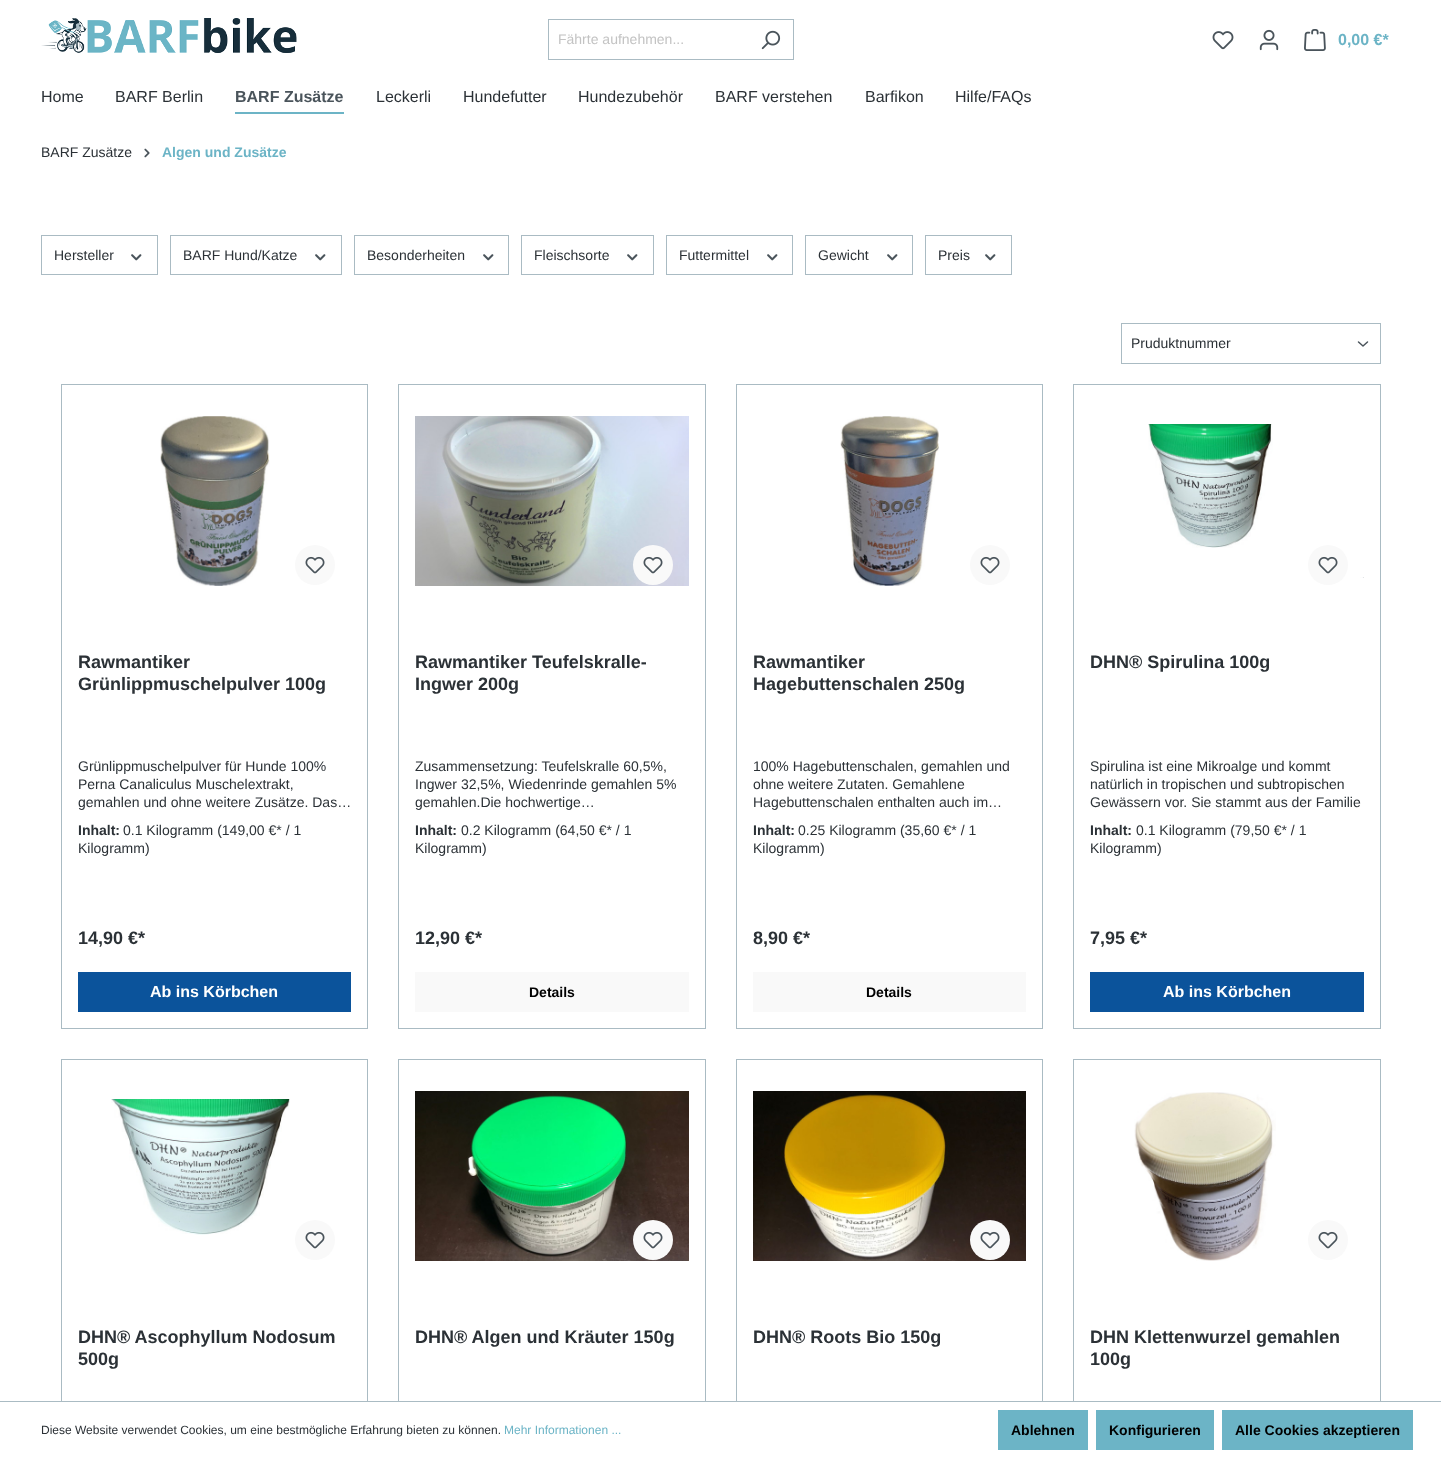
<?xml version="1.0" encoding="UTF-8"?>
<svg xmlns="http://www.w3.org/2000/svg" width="1441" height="1458">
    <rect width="100%" height="100%" fill="#FFFFFF"/>
    <image x="41" y="18" width="256" height="35" href="img_01.png"/>
    <rect x="548" y="19" width="246" height="1" fill="#AABBC3"/>
    <rect x="548" y="59" width="200" height="1" fill="#AABBC3"/>
    <rect x="548" y="19" width="1" height="41" fill="#AABBC3"/>
    <text x="558" y="44" font-family="Liberation Sans" font-size="14" fill="#C3C3C3">Fährte aufnehmen...</text>
    <rect x="793" y="19" width="1" height="41" fill="#AABBC3"/>
    <rect x="747" y="59" width="47" height="1" fill="#AABBC3"/>
    <image x="761" y="30" width="20" height="20" href="img_02.png"/>
    <image x="1212" y="31" width="22" height="19" href="img_03.png"/>
    <image x="1259" y="29" width="20" height="22" href="img_04.png"/>
    <image x="1304" y="29" width="22" height="22" href="img_05.png"/>
    <text x="1338" y="45" font-family="Liberation Sans" font-size="16" font-weight="700" fill="#6CB4C6">0,00 €*</text>
    <text x="41" y="102" font-family="Liberation Sans" font-size="16" fill="#2B3136">Home</text>
    <text x="115" y="102" font-family="Liberation Sans" font-size="16" fill="#2B3136">BARF Berlin</text>
    <rect x="235" y="112" width="109" height="2" fill="#6CB4C6"/>
    <text x="235" y="102" font-family="Liberation Sans" font-size="16" font-weight="700" fill="#4A545B">BARF Zusätze</text>
    <text x="376" y="102" font-family="Liberation Sans" font-size="16" fill="#2B3136">Leckerli</text>
    <text x="463" y="102" font-family="Liberation Sans" font-size="16" fill="#2B3136">Hundefutter</text>
    <text x="578" y="102" font-family="Liberation Sans" font-size="16" fill="#2B3136">Hundezubehör</text>
    <text x="715" y="102" font-family="Liberation Sans" font-size="16" fill="#2B3136">BARF verstehen</text>
    <text x="865" y="102" font-family="Liberation Sans" font-size="16" fill="#2B3136">Barfikon</text>
    <text x="955" y="102" font-family="Liberation Sans" font-size="16" fill="#2B3136">Hilfe/FAQs</text>
    <text x="41" y="157" font-family="Liberation Sans" font-size="14" fill="#2B3136">BARF Zusätze</text>
    <image x="144" y="148" width="6" height="10" href="img_06.png"/>
    <text x="162" y="157" font-family="Liberation Sans" font-size="14" font-weight="700" fill="#6CB4C6">Algen und Zusätze</text>
    <rect x="41.5" y="235.5" width="116" height="39" fill="none" stroke="#AABBC3"/>
    <text x="54" y="260" font-family="Liberation Sans" font-size="14" fill="#2B3136">Hersteller</text>
    <image x="131" y="254" width="11" height="7" href="img_07.png"/>
    <rect x="170.5" y="235.5" width="171" height="39" fill="none" stroke="#AABBC3"/>
    <text x="183" y="260" font-family="Liberation Sans" font-size="14" fill="#2B3136">BARF Hund/Katze</text>
    <image x="315" y="254" width="11" height="7" href="img_07.png"/>
    <rect x="354.5" y="235.5" width="154" height="39" fill="none" stroke="#AABBC3"/>
    <text x="367" y="260" font-family="Liberation Sans" font-size="14" fill="#2B3136">Besonderheiten</text>
    <image x="483" y="254" width="11" height="7" href="img_07.png"/>
    <rect x="521.5" y="235.5" width="132" height="39" fill="none" stroke="#AABBC3"/>
    <text x="534" y="260" font-family="Liberation Sans" font-size="14" fill="#2B3136">Fleischsorte</text>
    <image x="627" y="254" width="11" height="7" href="img_07.png"/>
    <rect x="666.5" y="235.5" width="126" height="39" fill="none" stroke="#AABBC3"/>
    <text x="679" y="260" font-family="Liberation Sans" font-size="14" fill="#2B3136">Futtermittel</text>
    <image x="767" y="254" width="11" height="7" href="img_07.png"/>
    <rect x="805.5" y="235.5" width="107" height="39" fill="none" stroke="#AABBC3"/>
    <text x="818" y="260" font-family="Liberation Sans" font-size="14" fill="#2B3136">Gewicht</text>
    <image x="887" y="254" width="11" height="7" href="img_07.png"/>
    <rect x="925.5" y="235.5" width="86" height="39" fill="none" stroke="#AABBC3"/>
    <text x="938" y="260" font-family="Liberation Sans" font-size="14" fill="#2B3136">Preis</text>
    <image x="985" y="254" width="11" height="7" href="img_07.png"/>
    <path d="M 1358.5 342 L 1363 346 L 1367.5 342" fill="none" stroke="#4A545B" stroke-width="1.5" stroke-linecap="round" stroke-linejoin="round"/>
    <rect x="1121.5" y="323.5" width="259" height="40" fill="none" stroke="#AABBC3"/>
    <text x="1131" y="348" font-family="Liberation Sans" font-size="14" fill="#2B3136">Pruduktnummer</text>
    <rect x="61.5" y="384.5" width="306" height="644" fill="none" stroke="#AABBC3"/>
    <image x="160" y="416" width="110" height="170" href="img_08.png"/>
    <circle cx="315" cy="565" r="20" fill="#F9F9F9"/>
    <image x="305" y="556" width="20" height="18" href="img_09.png"/>
    <text font-family="Liberation Sans" font-size="18" font-weight="700" fill="#2B3136">
        <tspan x="78" y="668">Rawmantiker</tspan>
        <tspan x="78" y="690">Grünlippmuschelpulver 100g</tspan>
    </text>
    <text font-family="Liberation Sans" font-size="14" fill="#2B3136">
        <tspan x="78" y="771">Grünlippmuschelpulver für Hunde 100%</tspan>
        <tspan x="78" y="789">Perna Canaliculus Muschelextrakt,</tspan>
        <tspan x="78" y="807">gemahlen und ohne weitere Zusätze. Das…</tspan>
    </text>
    <text x="78" y="835" font-family="Liberation Sans" font-size="14" font-weight="700" fill="#2B3136">Inhalt:</text>
    <text x="123" y="835" font-family="Liberation Sans" font-size="14" fill="#2B3136">0.1 Kilogramm (149,00 €* / 1</text>
    <text x="78" y="853" font-family="Liberation Sans" font-size="14" fill="#2B3136">Kilogramm)</text>
    <text x="78" y="944" font-family="Liberation Sans" font-size="18" font-weight="700" fill="#2B3136">14,90 €*</text>
    <rect x="78" y="972" width="273" height="40" fill="#0B539B"/>
    <text x="150" y="997" font-family="Liberation Sans" font-size="16" font-weight="700" fill="#FFFFFF">Ab ins Körbchen</text>
    <rect x="398.5" y="384.5" width="307" height="644" fill="none" stroke="#AABBC3"/>
    <image x="415" y="416" width="274" height="170" href="img_10.png"/>
    <circle cx="653" cy="565" r="20" fill="#F9F9F9"/>
    <image x="643" y="556" width="20" height="18" href="img_09.png"/>
    <text font-family="Liberation Sans" font-size="18" font-weight="700" fill="#2B3136">
        <tspan x="415" y="668">Rawmantiker Teufelskralle-</tspan>
        <tspan x="415" y="690">Ingwer 200g</tspan>
    </text>
    <text font-family="Liberation Sans" font-size="14" fill="#2B3136">
        <tspan x="415" y="771">Zusammensetzung: Teufelskralle 60,5%,</tspan>
        <tspan x="415" y="789">Ingwer 32,5%, Wiedenrinde gemahlen 5%</tspan>
        <tspan x="415" y="807">gemahlen.Die hochwertige…</tspan>
    </text>
    <text x="415" y="835" font-family="Liberation Sans" font-size="14" font-weight="700" fill="#2B3136">Inhalt:</text>
    <text x="461" y="835" font-family="Liberation Sans" font-size="14" fill="#2B3136">0.2 Kilogramm (64,50 €* / 1</text>
    <text x="415" y="853" font-family="Liberation Sans" font-size="14" fill="#2B3136">Kilogramm)</text>
    <text x="415" y="944" font-family="Liberation Sans" font-size="18" font-weight="700" fill="#2B3136">12,90 €*</text>
    <rect x="415" y="972" width="274" height="40" fill="#F9F9F9"/>
    <text x="529" y="997" font-family="Liberation Sans" font-size="14" font-weight="700" fill="#000000">Details</text>
    <rect x="736.5" y="384.5" width="306" height="644" fill="none" stroke="#AABBC3"/>
    <image x="840" y="416" width="99" height="170" href="img_11.png"/>
    <circle cx="990" cy="565" r="20" fill="#F9F9F9"/>
    <image x="980" y="556" width="20" height="18" href="img_09.png"/>
    <text font-family="Liberation Sans" font-size="18" font-weight="700" fill="#2B3136">
        <tspan x="753" y="668">Rawmantiker</tspan>
        <tspan x="753" y="690">Hagebuttenschalen 250g</tspan>
    </text>
    <text font-family="Liberation Sans" font-size="14" fill="#2B3136">
        <tspan x="753" y="771">100% Hagebuttenschalen, gemahlen und</tspan>
        <tspan x="753" y="789">ohne weitere Zutaten. Gemahlene</tspan>
        <tspan x="753" y="807">Hagebuttenschalen enthalten auch im…</tspan>
    </text>
    <text x="753" y="835" font-family="Liberation Sans" font-size="14" font-weight="700" fill="#2B3136">Inhalt:</text>
    <text x="798" y="835" font-family="Liberation Sans" font-size="14" fill="#2B3136">0.25 Kilogramm (35,60 €* / 1</text>
    <text x="753" y="853" font-family="Liberation Sans" font-size="14" fill="#2B3136">Kilogramm)</text>
    <text x="753" y="944" font-family="Liberation Sans" font-size="18" font-weight="700" fill="#2B3136">8,90 €*</text>
    <rect x="753" y="972" width="273" height="40" fill="#F9F9F9"/>
    <text x="866" y="997" font-family="Liberation Sans" font-size="14" font-weight="700" fill="#000000">Details</text>
    <rect x="1073.5" y="384.5" width="307" height="644" fill="none" stroke="#AABBC3"/>
    <image x="1148" y="424" width="216" height="154" href="img_12.png"/>
    <circle cx="1328" cy="565" r="20" fill="#F9F9F9"/>
    <image x="1318" y="556" width="20" height="18" href="img_09.png"/>
    <text x="1090" y="668" font-family="Liberation Sans" font-size="18" font-weight="700" fill="#2B3136">DHN® Spirulina 100g</text>
    <text font-family="Liberation Sans" font-size="14" fill="#2B3136">
        <tspan x="1090" y="771">Spirulina ist eine Mikroalge und kommt</tspan>
        <tspan x="1090" y="789">natürlich in tropischen und subtropischen</tspan>
        <tspan x="1090" y="807">Gewässern vor. Sie stammt aus der Familie</tspan>
    </text>
    <text x="1090" y="835" font-family="Liberation Sans" font-size="14" font-weight="700" fill="#2B3136">Inhalt:</text>
    <text x="1136" y="835" font-family="Liberation Sans" font-size="14" fill="#2B3136">0.1 Kilogramm (79,50 €* / 1</text>
    <text x="1090" y="853" font-family="Liberation Sans" font-size="14" fill="#2B3136">Kilogramm)</text>
    <text x="1090" y="944" font-family="Liberation Sans" font-size="18" font-weight="700" fill="#2B3136">7,95 €*</text>
    <rect x="1090" y="972" width="274" height="40" fill="#0B539B"/>
    <text x="1163" y="997" font-family="Liberation Sans" font-size="16" font-weight="700" fill="#FFFFFF">Ab ins Körbchen</text>
    <rect x="61.5" y="1059.5" width="306" height="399" fill="none" stroke="#AABBC3"/>
    <image x="111" y="1099" width="179" height="136" href="img_13.png"/>
    <circle cx="315" cy="1240" r="20" fill="#F9F9F9"/>
    <image x="305" y="1231" width="20" height="18" href="img_09.png"/>
    <text font-family="Liberation Sans" font-size="18" font-weight="700" fill="#2B3136">
        <tspan x="78" y="1343">DHN® Ascophyllum Nodosum</tspan>
        <tspan x="78" y="1365">500g</tspan>
    </text>
    <rect x="398.5" y="1059.5" width="307" height="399" fill="none" stroke="#AABBC3"/>
    <image x="415" y="1091" width="274" height="170" href="img_14.png"/>
    <circle cx="653" cy="1240" r="20" fill="#F9F9F9"/>
    <image x="643" y="1231" width="20" height="18" href="img_09.png"/>
    <text x="415" y="1343" font-family="Liberation Sans" font-size="18" font-weight="700" fill="#2B3136">DHN® Algen und Kräuter 150g</text>
    <rect x="736.5" y="1059.5" width="306" height="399" fill="none" stroke="#AABBC3"/>
    <image x="753" y="1091" width="273" height="170" href="img_15.png"/>
    <circle cx="990" cy="1240" r="20" fill="#F9F9F9"/>
    <image x="980" y="1231" width="20" height="18" href="img_09.png"/>
    <text x="753" y="1343" font-family="Liberation Sans" font-size="18" font-weight="700" fill="#2B3136">DHN® Roots Bio 150g</text>
    <rect x="1073.5" y="1059.5" width="307" height="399" fill="none" stroke="#AABBC3"/>
    <image x="1134" y="1092" width="142" height="169" href="img_16.png"/>
    <circle cx="1328" cy="1240" r="20" fill="#F9F9F9"/>
    <image x="1318" y="1231" width="20" height="18" href="img_09.png"/>
    <text font-family="Liberation Sans" font-size="18" font-weight="700" fill="#2B3136">
        <tspan x="1090" y="1343">DHN Klettenwurzel gemahlen</tspan>
        <tspan x="1090" y="1365">100g</tspan>
    </text>
    <rect x="61" y="1402" width="1320" height="56" fill="#FFFFFF"/>
    <rect x="0" y="1401" width="1441" height="1" fill="#AABBC3"/>
    <text x="41" y="1434" font-family="Liberation Sans" font-size="12" fill="#2B3136">Diese Website verwendet Cookies, um eine bestmögliche Erfahrung bieten zu können.</text>
    <text x="504" y="1434" font-family="Liberation Sans" font-size="12" fill="#6CB4C6">Mehr Informationen ...</text>
    <rect x="998" y="1410" width="90" height="40" fill="#6CB4C6"/>
    <text x="1011" y="1435" font-family="Liberation Sans" font-size="14" font-weight="700" fill="#000000">Ablehnen</text>
    <rect x="1096" y="1410" width="118" height="40" fill="#6CB4C6"/>
    <text x="1109" y="1435" font-family="Liberation Sans" font-size="14" font-weight="700" fill="#000000">Konfigurieren</text>
    <rect x="1222" y="1410" width="191" height="40" fill="#6CB4C6"/>
    <text x="1235" y="1435" font-family="Liberation Sans" font-size="14" font-weight="700" fill="#000000">Alle Cookies akzeptieren</text>
</svg>
